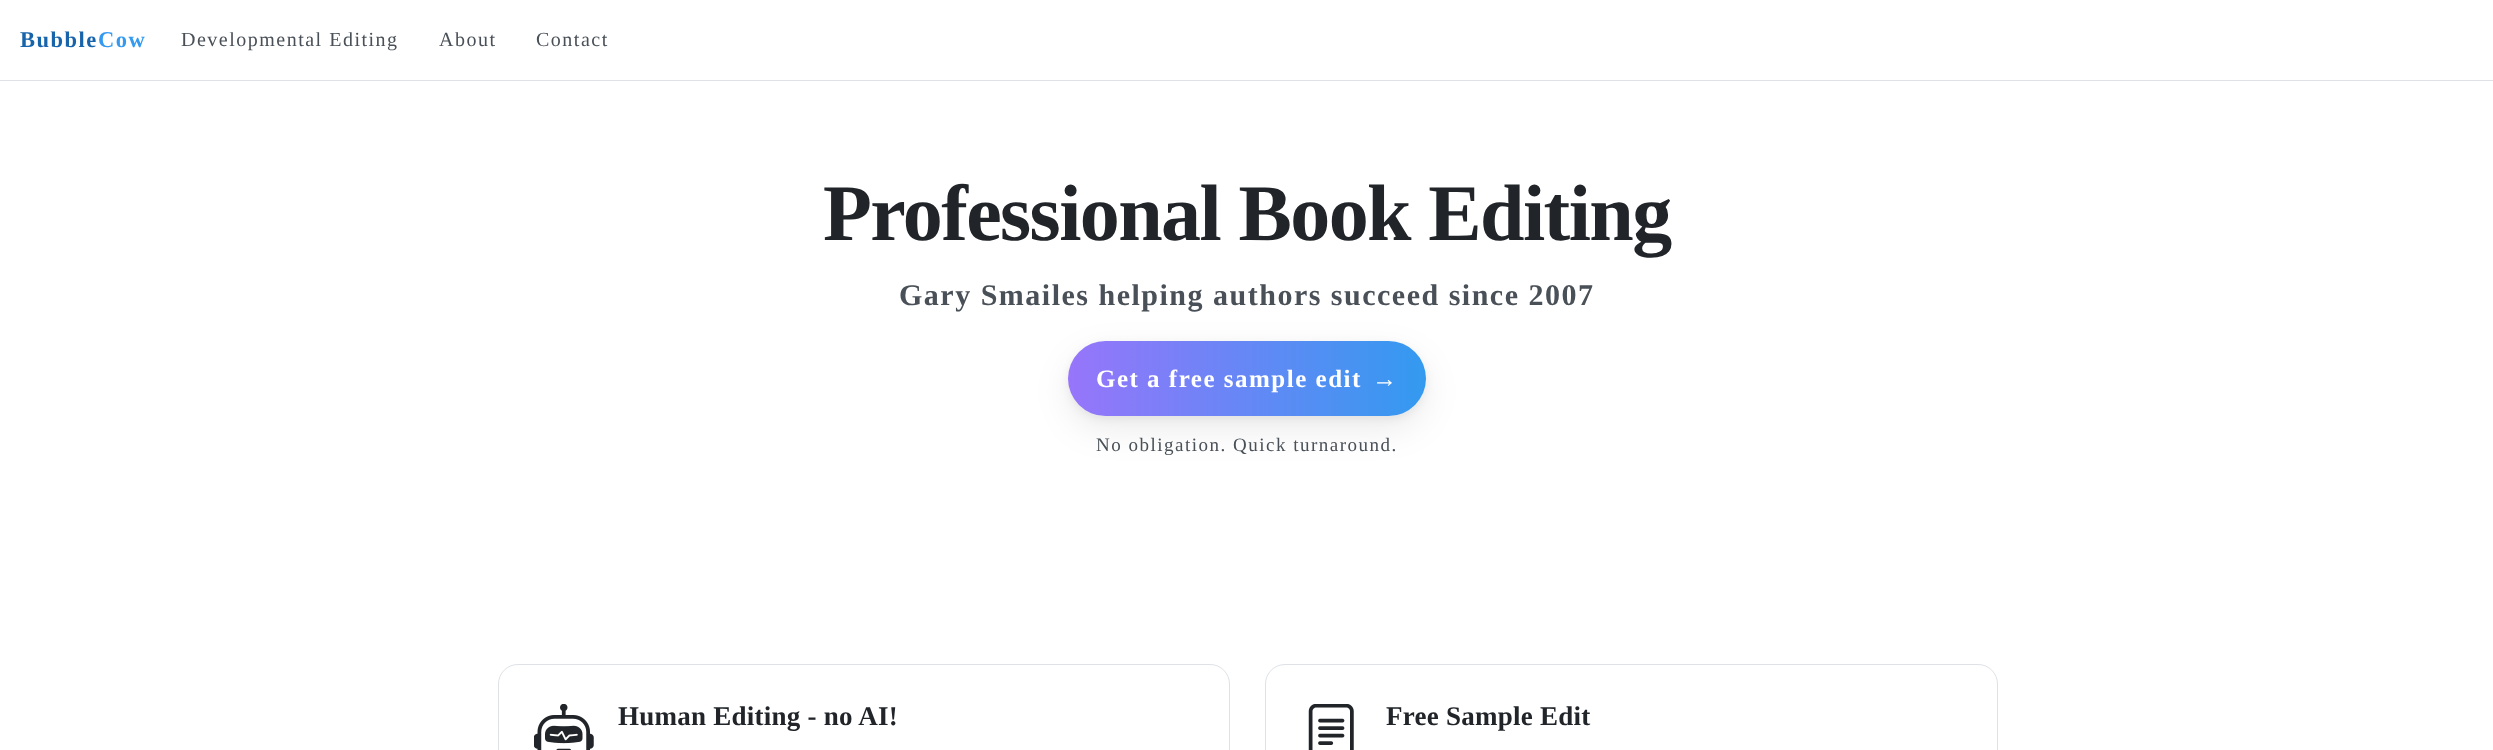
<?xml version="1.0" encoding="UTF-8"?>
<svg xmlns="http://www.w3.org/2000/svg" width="2493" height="750">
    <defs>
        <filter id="blur1" x="-50%" y="-200%" width="200%" height="500%"><feGaussianBlur stdDeviation="4"/></filter>
        <filter id="blur2" x="-50%" y="-200%" width="200%" height="500%"><feGaussianBlur stdDeviation="17.5"/></filter>
        <linearGradient id="g1" gradientUnits="userSpaceOnUse" x1="1068" y1="379" x2="1426" y2="379"><stop offset="0" stop-color="#9775FA"/><stop offset="1" stop-color="#339AF0"/></linearGradient>
    </defs>
    <rect width="100%" height="100%" fill="#FFFFFF"/>
    <rect x="0" y="80" width="2493" height="1" fill="#DEE2E6"/>
    <text x="20" y="47" font-family="Liberation Serif" font-size="22.5" font-weight="700" letter-spacing="1.5" fill="#1864AB">Bubble</text>
    <text x="98" y="47" font-family="Liberation Serif" font-size="22.5" font-weight="700" letter-spacing="1.5" fill="#339AF0">Cow</text>
    <text x="181" y="46" font-family="Liberation Serif" font-size="20" letter-spacing="1.5" fill="#495057">Developmental Editing</text>
    <text x="439" y="46" font-family="Liberation Serif" font-size="20" letter-spacing="1.5" fill="#495057">About</text>
    <text x="536" y="46" font-family="Liberation Serif" font-size="20" letter-spacing="1.5" fill="#495057">Contact</text>
    <text x="823" y="240" font-family="Liberation Serif" font-size="80" font-weight="700" letter-spacing="-1.6" fill="#212529">Professional Book Editing</text>
    <text x="899" y="305" font-family="Liberation Serif" font-size="30" font-weight="700" letter-spacing="1.5" fill="#495057">Gary Smailes helping authors succeed since 2007</text>
    <rect x="1068" y="344" width="358" height="75" rx="37.5" fill="#000000" fill-opacity="0.06" filter="url(#blur1)"/>
    <rect x="1068" y="354" width="358" height="75" rx="37.5" fill="#000000" fill-opacity="0.08" filter="url(#blur2)"/>
    <rect x="1068" y="341" width="358" height="75" rx="37.5" fill="url(#g1)"/>
    <text x="1096" y="387" font-family="Liberation Serif" font-size="25" font-weight="700" letter-spacing="1.5" fill="#FFFFFF">Get a free sample edit</text>
    <text x="1372" y="387" font-family="Liberation Serif" font-size="25" font-weight="700" letter-spacing="1.5" fill="#FFFFFF">→</text>
    <text x="1096" y="451" font-family="Liberation Serif" font-size="19" letter-spacing="1.5" fill="#495057">No obligation. Quick turnaround.</text>
    <rect x="498.5" y="664.5" width="731" height="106" rx="19.5" fill="none" stroke="#DEE2E6"/>
    <image x="534" y="704" width="60" height="46" href="img_01.png"/>
    <text x="618" y="725" font-family="Liberation Serif" font-size="27" font-weight="700" letter-spacing="0.25" fill="#212529">Human Editing - no AI!</text>
    <rect x="1265.5" y="664.5" width="732" height="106" rx="19.5" fill="none" stroke="#DEE2E6"/>
    <image x="1308" y="704" width="46" height="46" href="img_02.png"/>
    <text x="1386" y="725" font-family="Liberation Serif" font-size="27" font-weight="700" letter-spacing="0.25" fill="#212529">Free Sample Edit</text>
</svg>
